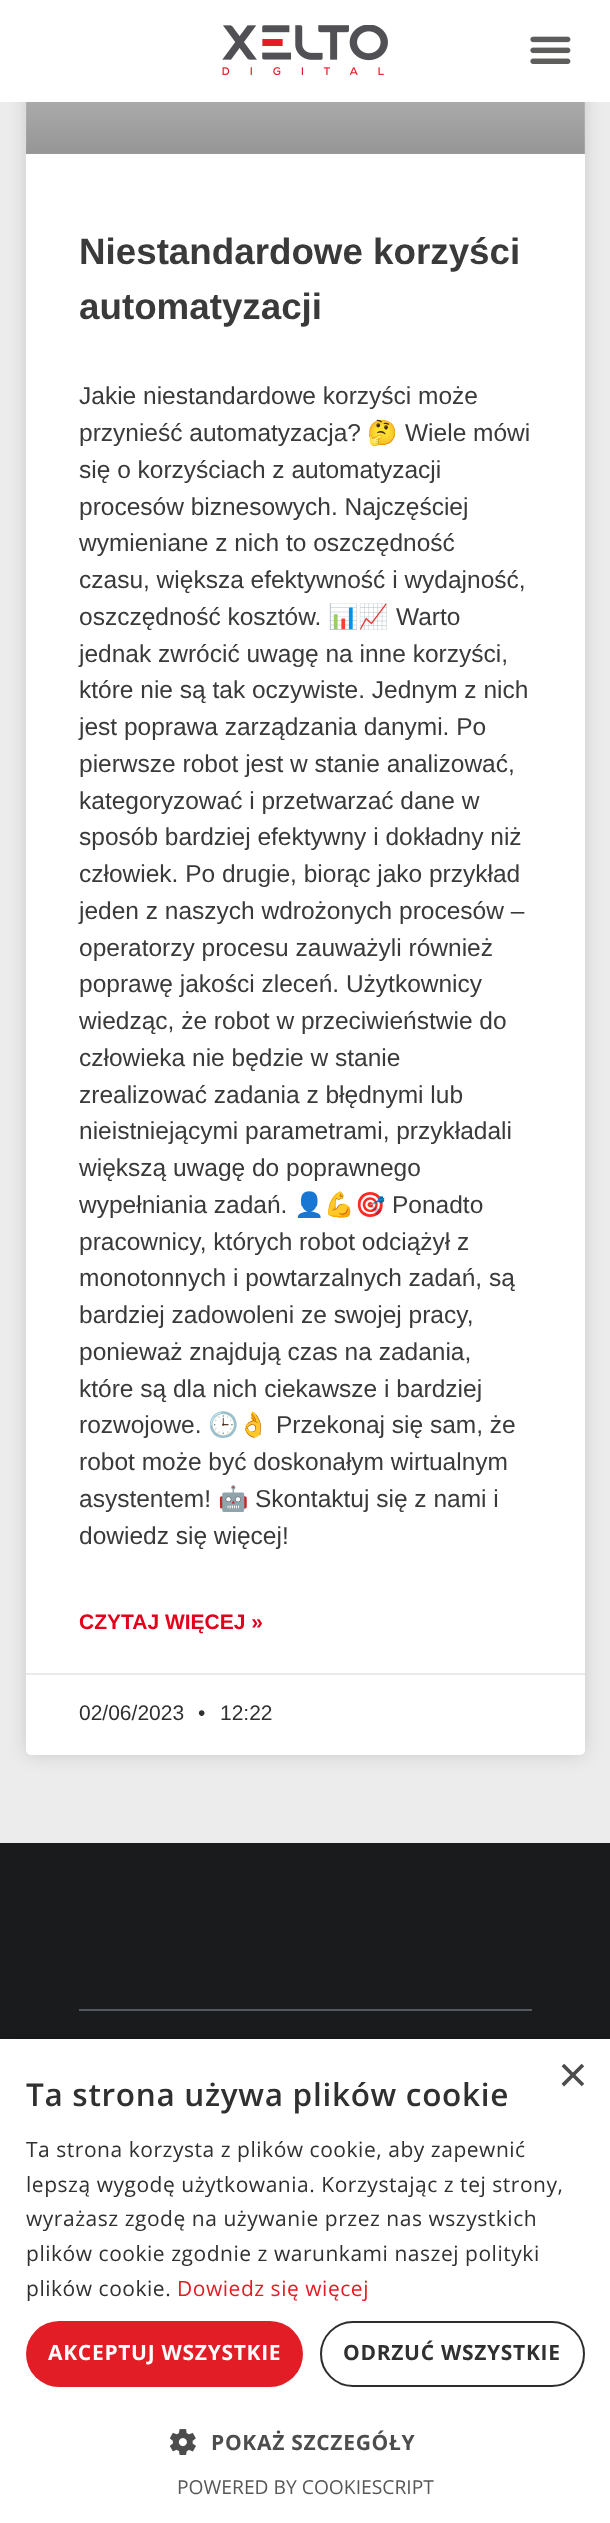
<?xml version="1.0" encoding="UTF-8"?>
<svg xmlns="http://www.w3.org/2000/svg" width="610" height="2523">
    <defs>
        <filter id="blur1" x="-50%" y="-200%" width="200%" height="500%"><feGaussianBlur stdDeviation="9"/></filter>
        <linearGradient id="g1" gradientUnits="userSpaceOnUse" x1="305" y1="154" x2="305" y2="-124"><stop offset="0" stop-color="#000000" stop-opacity="0.35"/><stop offset="0.75" stop-color="#000000" stop-opacity="0"/></linearGradient>
        <filter id="blur2" x="-50%" y="-200%" width="200%" height="500%"><feGaussianBlur stdDeviation="7"/></filter>
    </defs>
    <rect width="100%" height="100%" fill="#ECECEC"/>
    <rect x="26" y="-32" width="559" height="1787" rx="5" fill="#000000" fill-opacity="0.15" filter="url(#blur1)"/>
    <rect x="26" y="-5" width="559" height="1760" rx="5" fill="#FFFFFF"/>
    <rect x="0" y="0" width="610" height="102" fill="#FFFFFF"/>
    <image x="222" y="25" width="166" height="50" href="img_01.png"/>
    <image x="530" y="36" width="41" height="28" href="img_02.png"/>
    <image x="26" y="102" width="559" height="52" href="img_03.png"/>
    <rect x="26" y="102" width="559" height="52" fill="url(#g1)"/>
    <text font-family="Liberation Sans" font-size="36.75" font-weight="700" fill="#3A3A3A">
        <tspan x="79" y="264">Niestandardowe korzyści</tspan>
        <tspan x="79" y="319">automatyzacji</tspan>
    </text>
    <text font-family="Liberation Sans" font-size="24.5" fill="#3A3A3A">
        <tspan x="79" y="404">Jakie niestandardowe korzyści może</tspan>
        <tspan x="79" y="441">przynieść automatyzacja?</tspan>
    </text>
    <text x="367" y="441" font-family="Noto Color Emoji" font-size="24.5" fill="#3A3A3A">🤔</text>
    <text x="405" y="441" font-family="Liberation Sans" font-size="24.5" fill="#3A3A3A">Wiele mówi</text>
    <text font-family="Liberation Sans" font-size="24.5" fill="#3A3A3A">
        <tspan x="79" y="478">się o korzyściach z automatyzacji</tspan>
        <tspan x="79" y="515">procesów biznesowych. Najczęściej</tspan>
        <tspan x="79" y="551">wymieniane z nich to oszczędność</tspan>
        <tspan x="79" y="588">czasu, większa efektywność i wydajność,</tspan>
        <tspan x="79" y="625">oszczędność kosztów.</tspan>
    </text>
    <text x="328" y="625" font-family="Noto Color Emoji" font-size="24.5" fill="#3A3A3A">📊📈</text>
    <text x="396" y="625" font-family="Liberation Sans" font-size="24.5" fill="#3A3A3A">Warto</text>
    <text font-family="Liberation Sans" font-size="24.5" fill="#3A3A3A">
        <tspan x="79" y="662">jednak zwrócić uwagę na inne korzyści,</tspan>
        <tspan x="79" y="698">które nie są tak oczywiste. Jednym z nich</tspan>
        <tspan x="79" y="735">jest poprawa zarządzania danymi. Po</tspan>
        <tspan x="79" y="772">pierwsze robot jest w stanie analizować,</tspan>
        <tspan x="79" y="809">kategoryzować i przetwarzać dane w</tspan>
        <tspan x="79" y="845">sposób bardziej efektywny i dokładny niż</tspan>
        <tspan x="79" y="882">człowiek. Po drugie, biorąc jako przykład</tspan>
        <tspan x="79" y="919">jeden z naszych wdrożonych procesów –</tspan>
        <tspan x="79" y="956">operatorzy procesu zauważyli również</tspan>
        <tspan x="79" y="992">poprawę jakości zleceń. Użytkownicy</tspan>
        <tspan x="79" y="1029">wiedząc, że robot w przeciwieństwie do</tspan>
        <tspan x="79" y="1066">człowieka nie będzie w stanie</tspan>
        <tspan x="79" y="1103">zrealizować zadania z błędnymi lub</tspan>
        <tspan x="79" y="1139">nieistniejącymi parametrami, przykładali</tspan>
        <tspan x="79" y="1176">większą uwagę do poprawnego</tspan>
        <tspan x="79" y="1213">wypełniania zadań.</tspan>
    </text>
    <text x="294" y="1213" font-family="Noto Color Emoji" font-size="24.5" fill="#3A3A3A">👤💪🎯</text>
    <text x="392" y="1213" font-family="Liberation Sans" font-size="24.5" fill="#3A3A3A">Ponadto</text>
    <text font-family="Liberation Sans" font-size="24.5" fill="#3A3A3A">
        <tspan x="79" y="1250">pracownicy, których robot odciążył z</tspan>
        <tspan x="79" y="1286">monotonnych i powtarzalnych zadań, są</tspan>
        <tspan x="79" y="1323">bardziej zadowoleni ze swojej pracy,</tspan>
        <tspan x="79" y="1360">ponieważ znajdują czas na zadania,</tspan>
        <tspan x="79" y="1397">które są dla nich ciekawsze i bardziej</tspan>
        <tspan x="79" y="1433">rozwojowe.</tspan>
    </text>
    <text x="208" y="1433" font-family="Noto Color Emoji" font-size="24.5" fill="#3A3A3A">🕒👌</text>
    <text x="276" y="1433" font-family="Liberation Sans" font-size="24.5" fill="#3A3A3A">Przekonaj się sam, że</text>
    <text font-family="Liberation Sans" font-size="24.5" fill="#3A3A3A">
        <tspan x="79" y="1470">robot może być doskonałym wirtualnym</tspan>
        <tspan x="79" y="1507">asystentem!</tspan>
    </text>
    <text x="218" y="1507" font-family="Noto Color Emoji" font-size="24.5" fill="#3A3A3A">🤖</text>
    <text x="255" y="1507" font-family="Liberation Sans" font-size="24.5" fill="#3A3A3A">Skontaktuj się z nami i</text>
    <text x="79" y="1544" font-family="Liberation Sans" font-size="24.5" fill="#3A3A3A">dowiedz się więcej!</text>
    <text x="79" y="1629" font-family="Liberation Sans" font-size="21" font-weight="700" fill="#E2001A">CZYTAJ WIĘCEJ »</text>
    <rect x="26" y="1673" width="559" height="2" fill="#EAEAEA"/>
    <text x="79" y="1720" font-family="Liberation Sans" font-size="21" fill="#303030">02/06/2023</text>
    <text x="198" y="1720" font-family="Liberation Sans" font-size="21" fill="#303030">•</text>
    <text x="220" y="1720" font-family="Liberation Sans" font-size="21" fill="#303030">12:22</text>
    <rect x="0" y="1843" width="610" height="196" fill="#191B1D"/>
    <rect x="79" y="2009" width="453" height="2" fill="#54595F"/>
    <rect x="2" y="2042" width="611" height="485" fill="#000000" fill-opacity="0.35" filter="url(#blur2)"/>
    <rect x="0" y="2039" width="610" height="484" fill="#FFFFFF"/>
    <text x="558" y="2092" font-family="Liberation Sans" font-size="51" fill="#4D4D4D">×</text>
    <text x="26" y="2106" font-family="Open Sans" font-size="31.5" font-weight="600" letter-spacing="0.7" fill="#303030">Ta strona używa plików cookie</text>
    <text font-family="Open Sans" font-size="21" letter-spacing="0.53" fill="#303030">
        <tspan x="26" y="2157">Ta strona korzysta z plików cookie, aby zapewnić</tspan>
        <tspan x="26" y="2192">lepszą wygodę użytkowania. Korzystając z tej strony,</tspan>
        <tspan x="26" y="2226">wyrażasz zgodę na używanie przez nas wszystkich</tspan>
        <tspan x="26" y="2261">plików cookie zgodnie z warunkami naszej polityki</tspan>
        <tspan x="26" y="2296">plików cookie.</tspan>
    </text>
    <text x="177" y="2296" font-family="Open Sans" font-size="21" letter-spacing="0.53" fill="#E21D25">Dowiedz się więcej</text>
    <rect x="26" y="2321" width="277" height="66" rx="33" fill="#E21D25"/>
    <text x="48" y="2360" font-family="Open Sans" font-size="21" font-weight="700" letter-spacing="0.7" fill="#FFFFFF">AKCEPTUJ WSZYSTKIE</text>
    <rect x="321" y="2322" width="263" height="64" rx="32" fill="none" stroke="#2D2D2D" stroke-width="2"/>
    <text x="343" y="2360" font-family="Open Sans" font-size="21" font-weight="700" letter-spacing="0.7" fill="#303030">ODRZUĆ WSZYSTKIE</text>
    <image x="170" y="2429" width="26" height="26" href="img_04.png"/>
    <text x="211" y="2450" font-family="Open Sans" font-size="21" font-weight="700" letter-spacing="0.7" fill="#4D4D4D">POKAŻ SZCZEGÓŁY</text>
    <text x="177" y="2494" font-family="Open Sans" font-size="19.25" fill="#575757">POWERED BY COOKIESCRIPT</text>
</svg>
